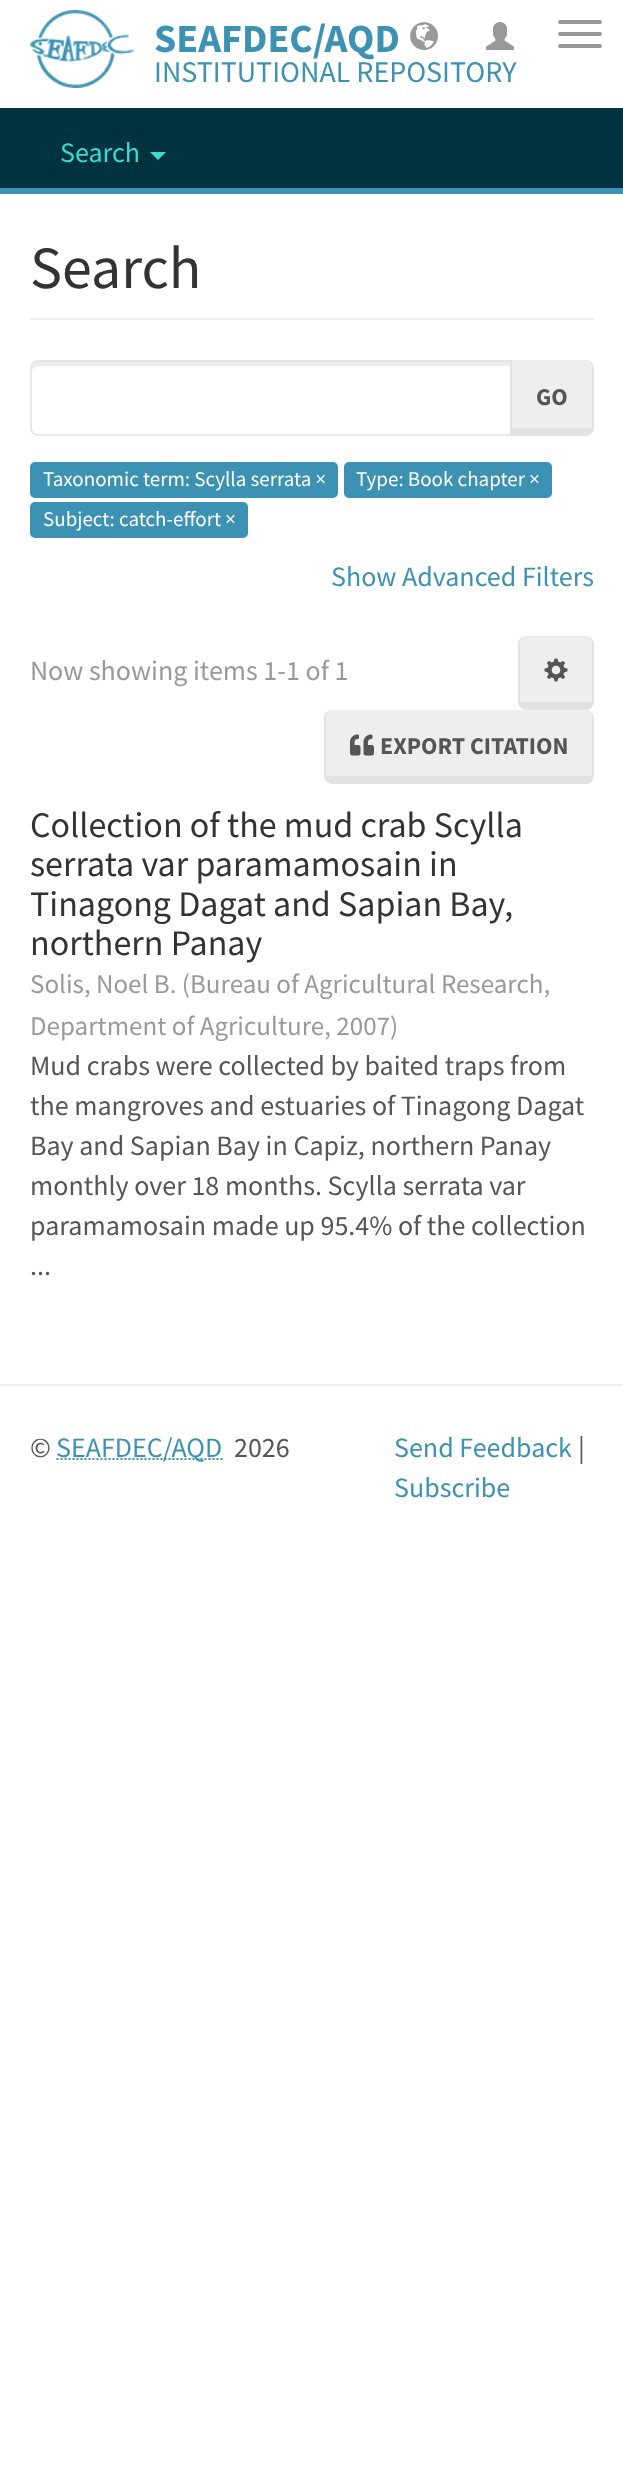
<?xml version="1.0" encoding="UTF-8"?>
<svg xmlns="http://www.w3.org/2000/svg" width="623" height="2475">
    <rect width="100%" height="100%" fill="#FFFFFF"/>
    <image x="30" y="10" width="104" height="78" href="img_01.png"/>
    <text x="154" y="52" font-family="Source Sans Pro" font-size="40" font-weight="700" fill="#3C92B3">SEAFDEC/AQD</text>
    <image x="410" y="22" width="28" height="28" href="img_02.png"/>
    <image x="486" y="22" width="28" height="28" href="img_03.png"/>
    <rect x="558" y="20" width="44" height="4" rx="2" fill="#999999"/>
    <rect x="558" y="32" width="44" height="4" rx="2" fill="#999999"/>
    <rect x="558" y="44" width="44" height="4" rx="2" fill="#999999"/>
    <text x="154" y="82" font-family="Source Sans Pro" font-size="30" fill="#3C92B3">INSTITUTIONAL REPOSITORY</text>
    <rect x="0" y="108" width="623" height="80" fill="#003340"/>
    <rect x="0" y="188" width="623" height="6" fill="#3C92B3"/>
    <text x="60" y="162" font-family="Source Sans Pro" font-size="28" fill="#39DBD2">Search</text>
    <path d="M 150 152 H 166 L 158 160 Z" fill="#39DBD2"/>
    <rect x="30" y="318" width="564" height="2" fill="#EEEEEE"/>
    <text x="30" y="288" font-family="Source Sans Pro" font-size="60" fill="#333333">Search</text>
    <path d="M 38 366 H 510 V 362 H 37 C 32 363 32 368 32 372 C 32 369 35 366 38 366 Z" fill="#ECECEC"/>
    <path d="M 38 361 H 511 V 435 H 38 C 34 435 31 432 31 428 V 368 C 31 364 34 361 38 361 Z" fill="none" stroke="#E7E7E7" stroke-width="2"/>
    <path d="M 512 360 H 586 C 589 360 592 364 592 368 V 428 H 512 Z" fill="#EEEEEE"/>
    <path d="M 510 360 H 586 C 590 360 594 364 594 368 V 428 C 594 432 590 436 586 436 H 510 Z M 512 360 H 586 C 589 360 592 364 592 368 V 428 H 512 Z" fill="#E2E2E2" fill-rule="evenodd"/>
    <text x="536" y="405" font-family="Source Sans Pro" font-size="24" font-weight="700" fill="#555555">GO</text>
    <rect x="30" y="462" width="308" height="36" rx="5" fill="#3C92B3"/>
    <text x="43" y="486" font-family="Source Sans Pro" font-size="21" fill="#FFFFFF">Taxonomic term: Scylla serrata ×</text>
    <rect x="344" y="462" width="208" height="36" rx="5" fill="#3C92B3"/>
    <text x="356" y="486" font-family="Source Sans Pro" font-size="21" fill="#FFFFFF">Type: Book chapter ×</text>
    <rect x="30" y="502" width="218" height="36" rx="5" fill="#3C92B3"/>
    <text x="43" y="526" font-family="Source Sans Pro" font-size="21" fill="#FFFFFF">Subject: catch-effort ×</text>
    <text x="331" y="586" font-family="Source Sans Pro" font-size="28" fill="#3C92B3">Show Advanced Filters</text>
    <text x="30" y="680" font-family="Source Sans Pro" font-size="28" fill="#999999">Now showing items 1-1 of 1</text>
    <path d="M 526 636 H 586 C 589 636 592 640 592 644 V 702 H 520 V 644 C 520 640 523 636 526 636 Z" fill="#EEEEEE"/>
    <path d="M 526 636 H 586 C 590 636 594 640 594 644 V 702 C 594 706 590 710 586 710 H 526 C 522 710 518 706 518 702 V 644 C 518 640 522 636 526 636 Z M 526 636 H 586 C 589 636 592 640 592 644 V 702 H 520 V 644 C 520 640 523 636 526 636 Z" fill="#E2E2E2" fill-rule="evenodd"/>
    <image x="544" y="658" width="24" height="24" href="img_04.png"/>
    <path d="M 332 710 H 586 C 589 710 592 714 592 718 V 776 H 326 V 718 C 326 714 329 710 332 710 Z" fill="#EEEEEE"/>
    <path d="M 332 710 H 586 C 590 710 594 714 594 718 V 776 C 594 780 590 784 586 784 H 332 C 328 784 324 780 324 776 V 718 C 324 714 328 710 332 710 Z M 332 710 H 586 C 589 710 592 714 592 718 V 776 H 326 V 718 C 326 714 329 710 332 710 Z" fill="#E2E2E2" fill-rule="evenodd"/>
    <image x="350" y="734" width="24" height="22" href="img_05.png"/>
    <text x="380" y="754" font-family="Source Sans Pro" font-size="24" font-weight="700" fill="#555555">EXPORT CITATION</text>
    <text font-family="Source Sans Pro" font-size="36" fill="#333333">
        <tspan x="30" y="837">Collection of the mud crab Scylla</tspan>
        <tspan x="30" y="876">serrata var paramamosain in</tspan>
        <tspan x="30" y="916">Tinagong Dagat and Sapian Bay,</tspan>
        <tspan x="30" y="955">northern Panay</tspan>
    </text>
    <text font-family="Source Sans Pro" font-size="27" fill="#999999">
        <tspan x="30" y="993">Solis, Noel B. (Bureau of Agricultural Research,</tspan>
        <tspan x="30" y="1035">Department of Agriculture, 2007)</tspan>
    </text>
    <text font-family="Source Sans Pro" font-size="28" fill="#555555">
        <tspan x="30" y="1075">Mud crabs were collected by baited traps from</tspan>
        <tspan x="30" y="1115">the mangroves and estuaries of Tinagong Dagat</tspan>
        <tspan x="30" y="1155">Bay and Sapian Bay in Capiz, northern Panay</tspan>
        <tspan x="30" y="1195">monthly over 18 months. Scylla serrata var</tspan>
        <tspan x="30" y="1235">paramamosain made up 95.4% of the collection</tspan>
        <tspan x="30" y="1275">...</tspan>
    </text>
    <rect x="0" y="1384" width="623" height="2" fill="#EEEEEE"/>
    <text x="30" y="1457" font-family="Source Sans Pro" font-size="28" fill="#555555">©</text>
    <path d="M 56.5 1459 H 222.5" fill="none" stroke="#3C92B3" stroke-width="2" stroke-dasharray="2 2"/>
    <text x="56" y="1457" font-family="Source Sans Pro" font-size="28" fill="#3C92B3">SEAFDEC/AQD</text>
    <text x="234" y="1457" font-family="Source Sans Pro" font-size="28" fill="#555555">2026</text>
    <text x="394" y="1457" font-family="Source Sans Pro" font-size="28" fill="#3C92B3">Send Feedback</text>
    <text x="578" y="1457" font-family="Source Sans Pro" font-size="28" fill="#555555">|</text>
    <text x="394" y="1497" font-family="Source Sans Pro" font-size="28" fill="#3C92B3">Subscribe</text>
</svg>
